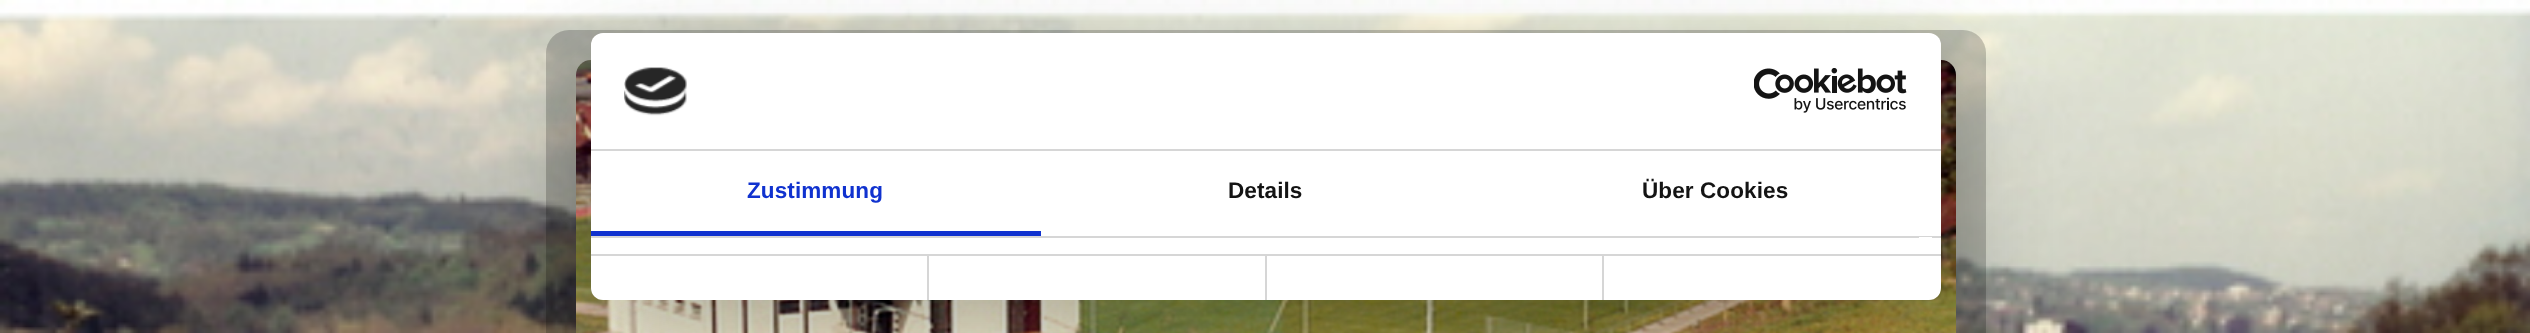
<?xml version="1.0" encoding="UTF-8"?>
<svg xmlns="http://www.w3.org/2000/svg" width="2530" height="333">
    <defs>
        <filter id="blur1" x="-50%" y="-200%" width="200%" height="500%"><feGaussianBlur stdDeviation="51"/></filter>
    </defs>
    <rect width="100%" height="100%" fill="#FFFFFF"/>
    <image x="0" y="0" width="2530" height="333" href="img_01.png"/>
    <rect x="546" y="30" width="1440" height="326" rx="23" fill="#000000" fill-opacity="0.2"/>
    <image x="576" y="60" width="1380" height="273" href="img_02.png"/>
    <rect x="591" y="81" width="1350" height="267" rx="12" fill="#000000" fill-opacity="0.3" filter="url(#blur1)"/>
    <rect x="591" y="33" width="1350" height="267" rx="12" fill="#FFFFFF"/>
    <rect x="591" y="149" width="1350" height="2" fill="#D6D6D6"/>
    <image x="624" y="67" width="63" height="49" href="img_03.png"/>
    <image x="1754" y="68" width="153" height="45" href="img_04.png"/>
    <rect x="591" y="236" width="1350" height="2" fill="#D6D6D6"/>
    <rect x="591" y="231" width="450" height="5" fill="#1032CF"/>
    <text x="747" y="198" font-family="Liberation Sans" font-size="22.5" font-weight="700" letter-spacing="0.1" fill="#1032CF">Zustimmung</text>
    <text x="1228" y="198" font-family="Liberation Sans" font-size="22.5" font-weight="700" letter-spacing="0.1" fill="#141414">Details</text>
    <text x="1642" y="198" font-family="Liberation Sans" font-size="22.5" font-weight="700" letter-spacing="0.1" fill="#141414">Über Cookies</text>
    <rect x="927" y="255" width="2" height="45" fill="#D6D6D6"/>
    <rect x="1265" y="255" width="2" height="45" fill="#D6D6D6"/>
    <rect x="1602" y="255" width="2" height="45" fill="#D6D6D6"/>
    <rect x="591" y="254" width="1350" height="2" fill="#D6D6D6"/>
    <rect x="1919" y="237" width="13" height="1" fill="#FFFFFF"/>
</svg>
